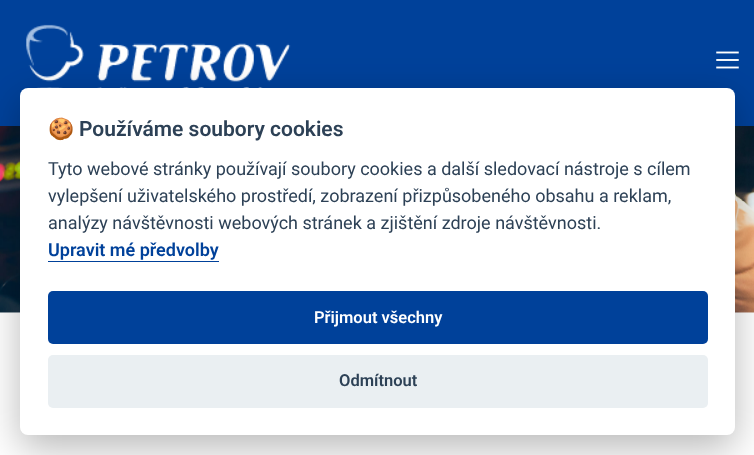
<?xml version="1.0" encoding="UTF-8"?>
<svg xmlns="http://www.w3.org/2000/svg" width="754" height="455">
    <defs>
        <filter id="blur1" x="-50%" y="-200%" width="200%" height="500%"><feGaussianBlur stdDeviation="19"/></filter>
    </defs>
    <rect width="100%" height="100%" fill="#FFFFFF"/>
    <rect x="0" y="0" width="754" height="126" fill="#00419A"/>
    <image x="26" y="24" width="275" height="65" href="img_01.png"/>
    <image x="716" y="51" width="23" height="18" href="img_02.png"/>
    <image x="0" y="126" width="754" height="187" href="img_03.png"/>
    <rect x="20" y="100" width="715" height="348" rx="8" fill="#020203" fill-opacity="0.28" filter="url(#blur1)"/>
    <rect x="20" y="88" width="715" height="347" rx="8" fill="#FFFFFF"/>
    <text x="48" y="136" font-family="Noto Color Emoji" font-size="21" font-weight="700" fill="#2D4156">🍪</text>
    <text x="79" y="136" font-family="Roboto" font-size="21" font-weight="600" fill="#2D4156">Používáme soubory cookies</text>
    <text font-family="Roboto" font-size="18" fill="#2D4156">
        <tspan x="48" y="175">Tyto webové stránky používají soubory cookies a další sledovací nástroje s cílem</tspan>
        <tspan x="48" y="202">vylepšení uživatelského prostředí, zobrazení přizpůsobeného obsahu a reklam,</tspan>
        <tspan x="48" y="229">analýzy návštěvnosti webových stránek a zjištění zdroje návštěvnosti.</tspan>
    </text>
    <text x="48" y="256" font-family="Roboto" font-size="18" font-weight="600" fill="#00419A">Upravit mé předvolby</text>
    <rect x="48" y="261" width="171" height="1" fill="#00419A"/>
    <rect x="48" y="291" width="660" height="53" rx="5" fill="#00419A"/>
    <text x="314" y="323" font-family="Roboto" font-size="16.5" font-weight="600" fill="#FFFFFF">Přijmout všechny</text>
    <rect x="48" y="355" width="660" height="53" rx="5" fill="#EAEFF2"/>
    <text x="339" y="386" font-family="Roboto" font-size="16.5" font-weight="600" fill="#2D4156">Odmítnout</text>
</svg>
